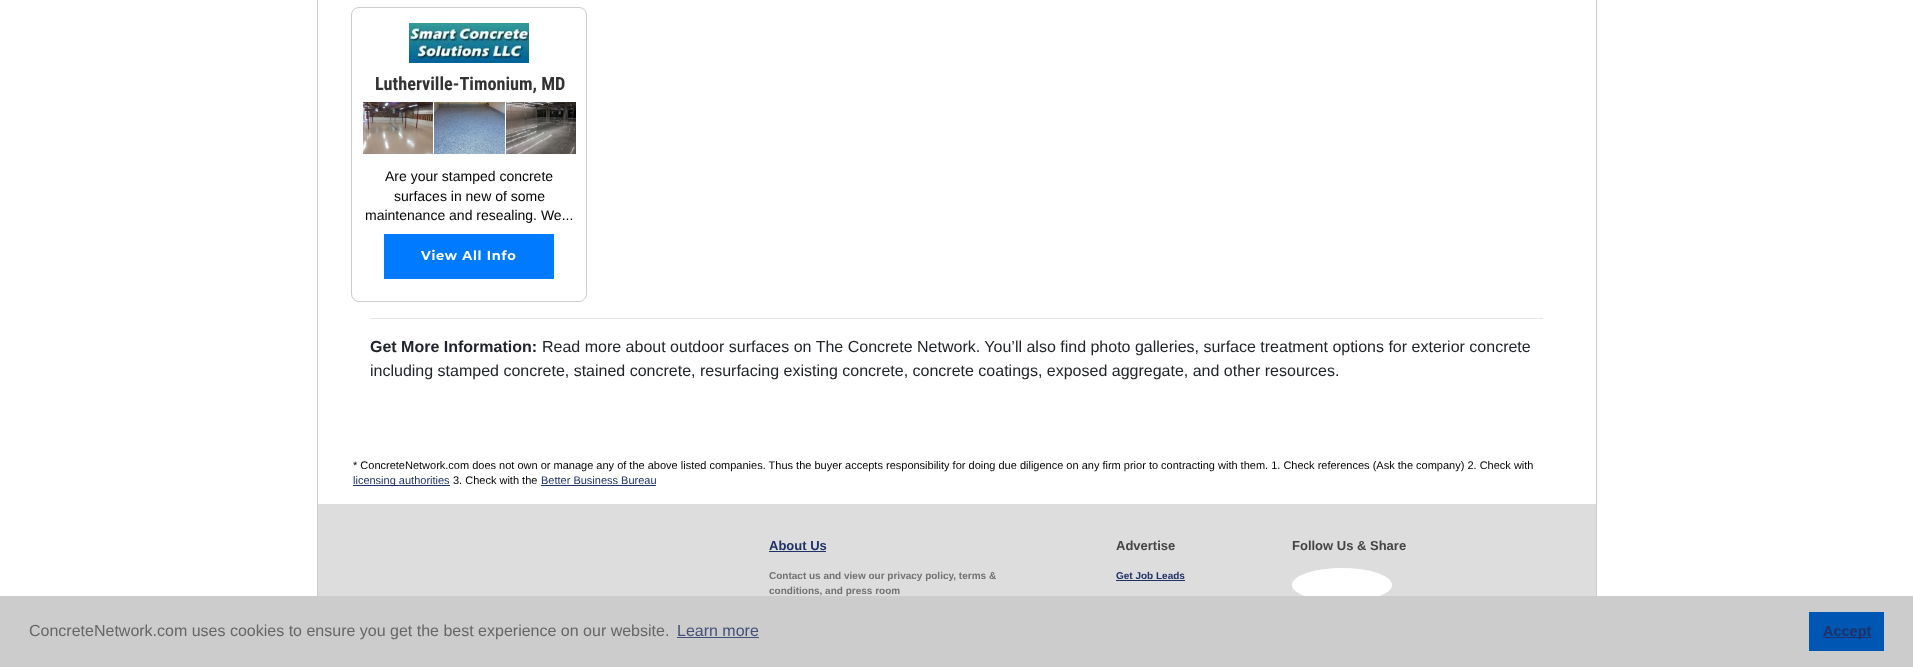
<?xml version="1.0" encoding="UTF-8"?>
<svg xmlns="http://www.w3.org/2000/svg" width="1913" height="667">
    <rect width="100%" height="100%" fill="#FFFFFF"/>
    <rect x="1596" y="0" width="1" height="596" fill="#CCCCCC"/>
    <rect x="317" y="0" width="1" height="596" fill="#CCCCCC"/>
    <rect x="351.5" y="7.5" width="235" height="294" rx="7.5" fill="none" stroke="#CCCCCC"/>
    <image x="409" y="23" width="120" height="40" href="img_01.png"/>
    <text x="375" y="90" font-family="Roboto Condensed" font-size="18.25" font-weight="700" fill="#333333">Lutherville-Timonium, MD</text>
    <image x="363" y="102" width="70" height="52" href="img_02.png"/>
    <image x="434" y="102" width="71" height="52" href="img_03.png"/>
    <image x="506" y="102" width="70" height="52" href="img_04.png"/>
    <text x="385" y="181" font-family="Liberation Sans" font-size="14" fill="#000000">Are your stamped concrete</text>
    <text x="394" y="201" font-family="Liberation Sans" font-size="14" fill="#000000">surfaces in new of some</text>
    <text x="365" y="220" font-family="Liberation Sans" font-size="14" fill="#000000">maintenance and resealing. We...</text>
    <rect x="384" y="234" width="170" height="45" fill="#007BFF"/>
    <text x="421" y="260" font-family="Montserrat" font-size="13" font-weight="100" letter-spacing="0.75" fill="#FFFFFF">View All Info</text>
    <rect x="370" y="318" width="1173" height="1" fill="#E6E6E6"/>
    <text x="370" y="352" font-family="Liberation Sans" font-size="16" font-weight="700" fill="#212529">Get More Information:</text>
    <text x="542" y="352" font-family="Liberation Sans" font-size="16" fill="#212529">Read more about outdoor surfaces on The Concrete Network. You’ll also find photo galleries, surface treatment options for exterior concrete</text>
    <text x="370" y="376" font-family="Liberation Sans" font-size="16" fill="#212529">including stamped concrete, stained concrete, resurfacing existing concrete, concrete coatings, exposed aggregate, and other resources.</text>
    <text x="353" y="469" font-family="Liberation Sans" font-size="11" fill="#000000">* ConcreteNetwork.com does not own or manage any of the above listed companies. Thus the buyer accepts responsibility for doing due diligence on any firm prior to contracting with them. 1. Check references (Ask the company) 2. Check with</text>
    <rect x="353" y="485" width="97" height="1" fill="#1F3165"/>
    <text x="353" y="484" font-family="Liberation Sans" font-size="11" fill="#1F3165">licensing authorities</text>
    <text x="453" y="484" font-family="Liberation Sans" font-size="11" fill="#000000">3. Check with the</text>
    <text x="541" y="484" font-family="Liberation Sans" font-size="11" fill="#1F3165">Better Business Bureau</text>
    <rect x="541" y="485" width="115" height="1" fill="#1F3165"/>
    <rect x="318" y="504" width="1278" height="92" fill="#DDDDDD"/>
    <text x="769" y="550" font-family="Liberation Sans" font-size="13" font-weight="700" fill="#1F3165">About Us</text>
    <rect x="769" y="551" width="57" height="1" fill="#1F3165"/>
    <text font-family="Liberation Sans" font-size="10" font-weight="700" fill="#727272">
        <tspan x="769" y="579">Contact us and view our privacy policy, terms &amp;</tspan>
        <tspan x="769" y="594">conditions, and press room</tspan>
    </text>
    <text x="1116" y="550" font-family="Liberation Sans" font-size="13" font-weight="700" fill="#444444">Advertise</text>
    <text x="1116" y="579" font-family="Liberation Sans" font-size="10" font-weight="700" fill="#1F3165">Get Job Leads</text>
    <rect x="1116" y="580" width="69" height="1" fill="#1F3165"/>
    <text x="1292" y="550" font-family="Liberation Sans" font-size="13" font-weight="700" fill="#444444">Follow Us &amp; Share</text>
    <ellipse cx="1342" cy="585" rx="50" ry="17" fill="#FFFFFF"/>
    <rect x="0" y="596" width="1913" height="71" fill="#CCCCCC"/>
    <text x="29" y="636" font-family="Liberation Sans" font-size="16" fill="#666666">ConcreteNetwork.com uses cookies to ensure you get the best experience on our website.</text>
    <text x="677" y="636" font-family="Liberation Sans" font-size="16" fill="#42507A">Learn more</text>
    <rect x="677" y="637" width="82" height="1" fill="#42507A"/>
    <rect x="1809" y="612" width="75" height="39" fill="#0056B3"/>
    <rect x="1823" y="637" width="48" height="1" fill="#1F3165"/>
    <text x="1823" y="636" font-family="Liberation Sans" font-size="14.5" font-weight="700" fill="#1F3165">Accept</text>
</svg>
